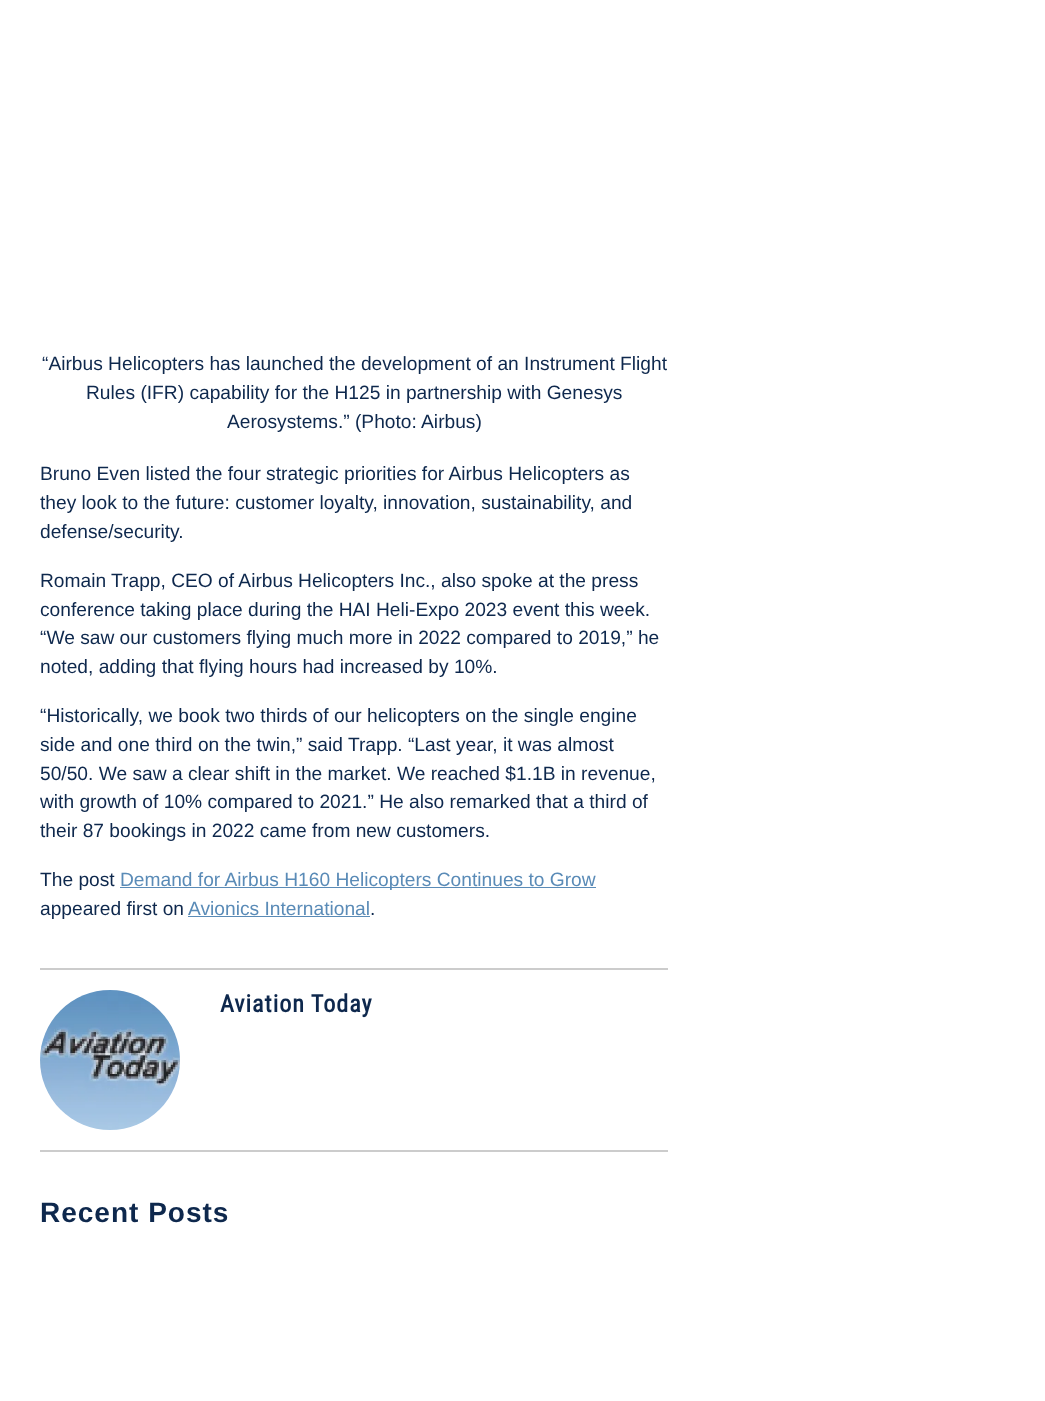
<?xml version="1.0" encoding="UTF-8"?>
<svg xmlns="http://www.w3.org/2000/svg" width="1045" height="1401">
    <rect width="100%" height="100%" fill="#FFFFFF"/>
    <text x="42" y="370" font-family="Liberation Sans" font-size="19.2" fill="#0E284D">“Airbus Helicopters has launched the development of an Instrument Flight</text>
    <text x="86" y="399" font-family="Liberation Sans" font-size="19.2" fill="#0E284D">Rules (IFR) capability for the H125 in partnership with Genesys</text>
    <text x="227" y="428" font-family="Liberation Sans" font-size="19.2" fill="#0E284D">Aerosystems.” (Photo: Airbus)</text>
    <text font-family="Liberation Sans" font-size="19.2" fill="#0E284D">
        <tspan x="40" y="480">Bruno Even listed the four strategic priorities for Airbus Helicopters as</tspan>
        <tspan x="40" y="509">they look to the future: customer loyalty, innovation, sustainability, and</tspan>
        <tspan x="40" y="538">defense/security.</tspan>
    </text>
    <text font-family="Liberation Sans" font-size="19.2" fill="#0E284D">
        <tspan x="40" y="587">Romain Trapp, CEO of Airbus Helicopters Inc., also spoke at the press</tspan>
        <tspan x="40" y="616">conference taking place during the HAI Heli-Expo 2023 event this week.</tspan>
        <tspan x="40" y="644">“We saw our customers flying much more in 2022 compared to 2019,” he</tspan>
        <tspan x="40" y="673">noted, adding that flying hours had increased by 10%.</tspan>
    </text>
    <text font-family="Liberation Sans" font-size="19.2" fill="#0E284D">
        <tspan x="40" y="722">“Historically, we book two thirds of our helicopters on the single engine</tspan>
        <tspan x="40" y="751">side and one third on the twin,” said Trapp. “Last year, it was almost</tspan>
        <tspan x="40" y="780">50/50. We saw a clear shift in the market. We reached $1.1B in revenue,</tspan>
        <tspan x="40" y="808">with growth of 10% compared to 2021.” He also remarked that a third of</tspan>
        <tspan x="40" y="837">their 87 bookings in 2022 came from new customers.</tspan>
    </text>
    <text x="40" y="886" font-family="Liberation Sans" font-size="19.2" fill="#0E284D">The post</text>
    <rect x="120" y="887" width="476" height="1" fill="#5A8BB7"/>
    <text x="120" y="886" font-family="Liberation Sans" font-size="19.2" fill="#5A8BB7">Demand for Airbus H160 Helicopters Continues to Grow</text>
    <text x="40" y="915" font-family="Liberation Sans" font-size="19.2" fill="#0E284D">appeared first on</text>
    <text x="188" y="915" font-family="Liberation Sans" font-size="19.2" fill="#5A8BB7">Avionics International</text>
    <rect x="188" y="916" width="182" height="1" fill="#5A8BB7"/>
    <text x="370" y="915" font-family="Liberation Sans" font-size="19.2" fill="#0E284D">.</text>
    <rect x="40" y="968" width="628" height="2" fill="#CCCCCC"/>
    <rect x="40" y="1150" width="628" height="2" fill="#CCCCCC"/>
    <image x="40" y="990" width="140" height="140" href="img_01.png"/>
    <text x="220" y="1012" font-family="Roboto Condensed" font-size="24" font-weight="700" letter-spacing="1" fill="#0E284D">Aviation Today</text>
    <text x="40" y="1222" font-family="Liberation Sans" font-size="28" font-weight="700" letter-spacing="1" fill="#0E284D">Recent Posts</text>
</svg>
